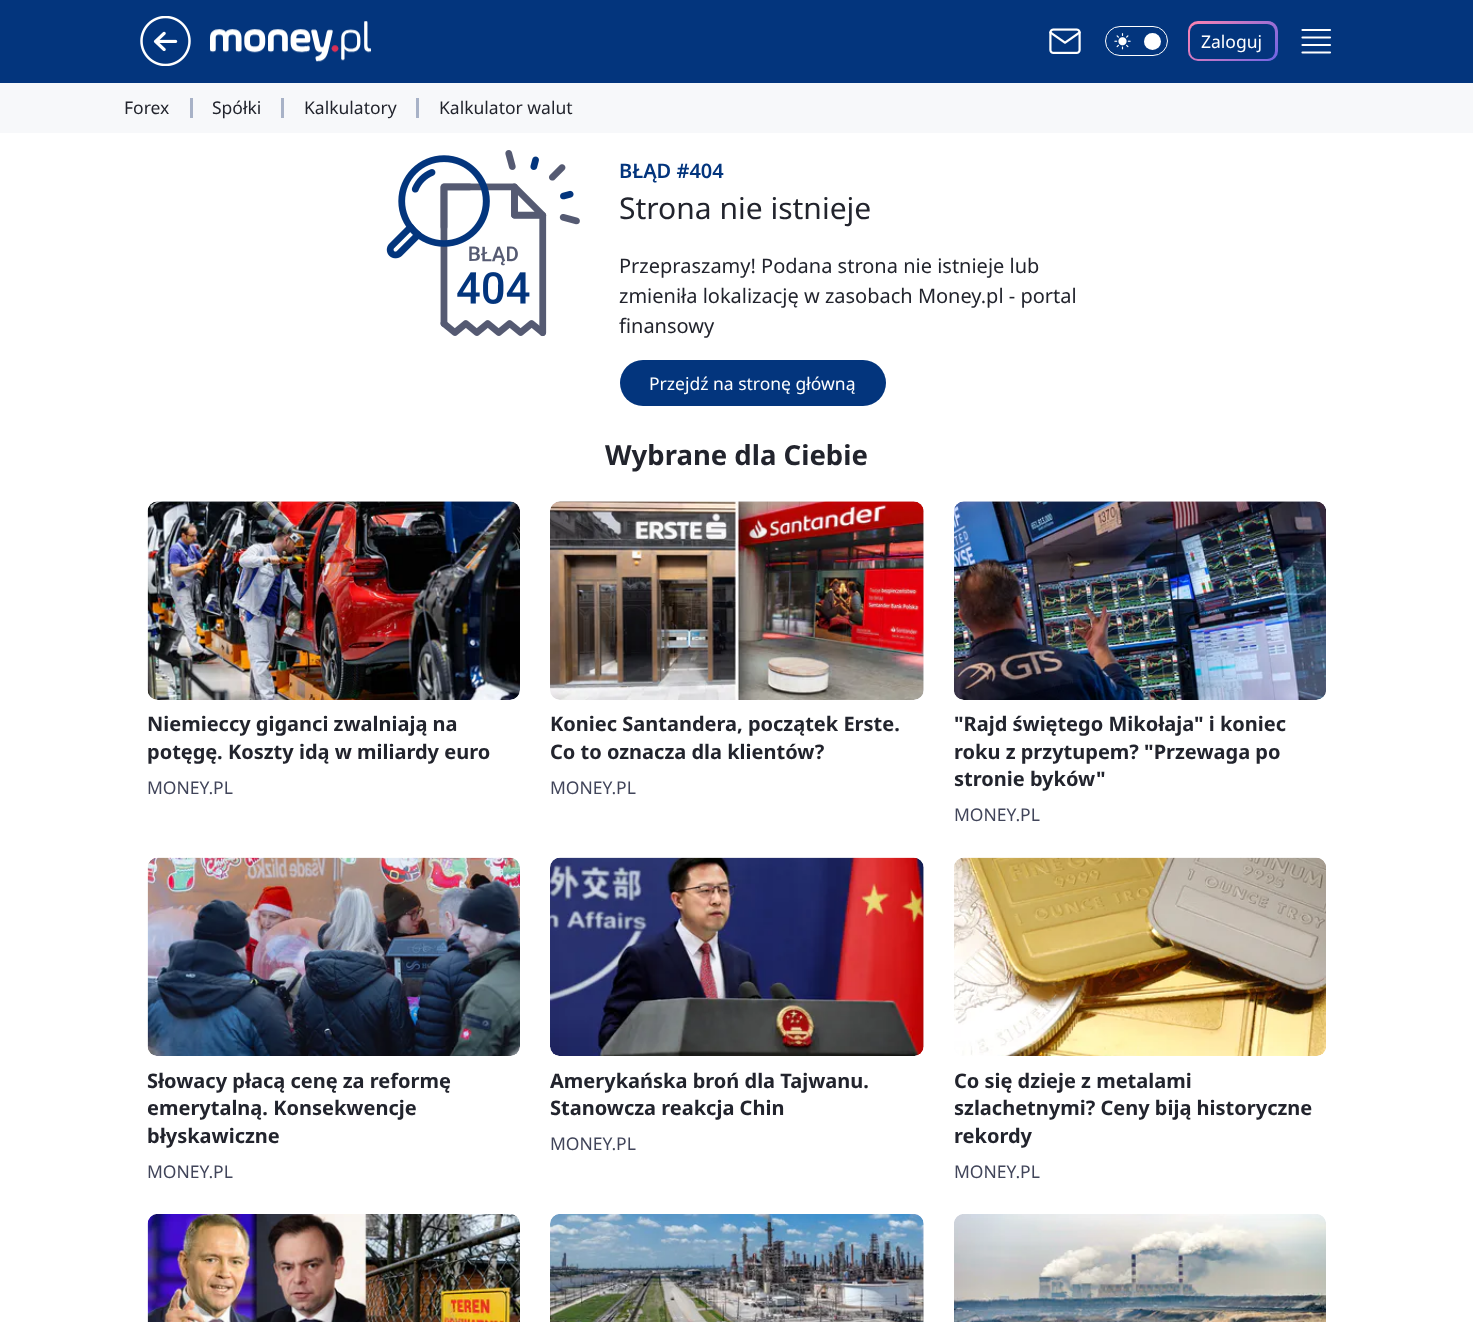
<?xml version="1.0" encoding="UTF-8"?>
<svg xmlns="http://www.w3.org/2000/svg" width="1473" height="1322">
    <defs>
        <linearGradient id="g1" gradientUnits="userSpaceOnUse" x1="1200" y1="9" x2="1265" y2="74"><stop offset="0" stop-color="#FF84B0"/><stop offset="1" stop-color="#6E65E5"/></linearGradient>
    </defs>
    <rect width="100%" height="100%" fill="#FFFFFF"/>
    <rect x="0" y="0" width="1473" height="83" fill="#03357D"/>
    <image x="140" y="16" width="51" height="50" href="img_01.png"/>
    <image x="210" y="21" width="161" height="41" href="img_02.png"/>
    <image x="1049" y="28" width="32" height="26" href="img_03.png"/>
    <rect x="1105.5" y="26.5" width="62" height="29" rx="14.5" fill="none" stroke="#FFFFFF"/>
    <image x="1114" y="33" width="17" height="17" href="img_04.png"/>
    <circle cx="1152.5" cy="41.5" r="8.5" fill="#FFFFFF"/>
    <rect x="1188" y="21" width="90" height="40" rx="10" fill="url(#g1)"/>
    <rect x="1190" y="24" width="85" height="35" rx="8" fill="#03357D"/>
    <text x="1201" y="48" font-family="Noto Sans" font-size="17.5" fill="#FFFFFF">Zaloguj</text>
    <path d="M 1302.5 45 H 1330 M 1302.5 37.5 H 1330 M 1302.5 30 H 1330 M 1302.5 52.5 H 1330" fill="none" stroke="#FFFFFF" stroke-width="2.2" stroke-linecap="round" stroke-linejoin="round"/>
    <rect x="0" y="83" width="1473" height="50" fill="#F7F8FA"/>
    <text x="124" y="114" font-family="Noto Sans" font-size="17.5" fill="#22242D">Forex</text>
    <rect x="190" y="98" width="3" height="20" fill="#A8B2C7"/>
    <text x="212" y="114" font-family="Noto Sans" font-size="17.5" fill="#22242D">Spółki</text>
    <rect x="281" y="98" width="3" height="20" fill="#A8B2C7"/>
    <text x="304" y="114" font-family="Noto Sans" font-size="17.5" fill="#22242D">Kalkulatory</text>
    <rect x="416" y="98" width="3" height="20" fill="#A8B2C7"/>
    <text x="439" y="114" font-family="Noto Sans" font-size="17.5" fill="#22242D">Kalkulator walut</text>
    <image x="386" y="150" width="194" height="187" href="img_05.png"/>
    <text x="619" y="178" font-family="Noto Sans" font-size="20" font-weight="600" fill="#03357D">BŁĄD #404</text>
    <text x="619" y="219" font-family="Noto Sans" font-size="30" fill="#22242D">Strona nie istnieje</text>
    <text font-family="Noto Sans" font-size="20" fill="#22242D">
        <tspan x="619" y="273">Przepraszamy! Podana strona nie istnieje lub</tspan>
        <tspan x="619" y="303">zmieniła lokalizację w zasobach Money.pl - portal</tspan>
        <tspan x="619" y="333">finansowy</tspan>
    </text>
    <rect x="620" y="360" width="266" height="46" rx="23" fill="#03357D"/>
    <text x="649" y="390" font-family="Noto Sans" font-size="17.5" fill="#FFFFFF">Przejdź na stronę główną</text>
    <text x="605" y="465" font-family="Noto Sans" font-size="27.5" font-weight="700" fill="#22242D">Wybrane dla Ciebie</text>
    <rect x="148" y="501" width="372" height="199" rx="10" fill="#F7F8FA"/>
    <image x="147" y="501" width="373" height="199" href="img_06.png"/>
    <text font-family="Noto Sans" font-size="20" font-weight="700" fill="#22242D">
        <tspan x="147" y="731">Niemieccy giganci zwalniają na</tspan>
        <tspan x="147" y="759">potęgę. Koszty idą w miliardy euro</tspan>
    </text>
    <text x="147" y="794" font-family="Noto Sans" font-size="17.5" fill="#41455A">MONEY.PL</text>
    <rect x="550" y="501" width="374" height="199" rx="10" fill="#F7F8FA"/>
    <image x="550" y="501" width="374" height="199" href="img_07.png"/>
    <text font-family="Noto Sans" font-size="20" font-weight="700" fill="#22242D">
        <tspan x="550" y="731">Koniec Santandera, początek Erste.</tspan>
        <tspan x="550" y="759">Co to oznacza dla klientów?</tspan>
    </text>
    <text x="550" y="794" font-family="Noto Sans" font-size="17.5" fill="#41455A">MONEY.PL</text>
    <rect x="954" y="501" width="372" height="199" rx="10" fill="#F7F8FA"/>
    <image x="954" y="501" width="372" height="199" href="img_08.png"/>
    <text font-family="Noto Sans" font-size="20" font-weight="700" fill="#22242D">
        <tspan x="954" y="731">"Rajd świętego Mikołaja" i koniec</tspan>
        <tspan x="954" y="759">roku z przytupem? "Przewaga po</tspan>
        <tspan x="954" y="786">stronie byków"</tspan>
    </text>
    <text x="954" y="821" font-family="Noto Sans" font-size="17.5" fill="#41455A">MONEY.PL</text>
    <rect x="148" y="858" width="372" height="198" rx="10" fill="#F7F8FA"/>
    <image x="147" y="857" width="373" height="199" href="img_09.png"/>
    <text font-family="Noto Sans" font-size="20" font-weight="700" fill="#22242D">
        <tspan x="147" y="1088">Słowacy płacą cenę za reformę</tspan>
        <tspan x="147" y="1115">emerytalną. Konsekwencje</tspan>
        <tspan x="147" y="1143">błyskawiczne</tspan>
    </text>
    <text x="147" y="1178" font-family="Noto Sans" font-size="17.5" fill="#41455A">MONEY.PL</text>
    <rect x="550" y="858" width="374" height="198" rx="10" fill="#F7F8FA"/>
    <image x="550" y="857" width="374" height="199" href="img_10.png"/>
    <text font-family="Noto Sans" font-size="20" font-weight="700" fill="#22242D">
        <tspan x="550" y="1088">Amerykańska broń dla Tajwanu.</tspan>
        <tspan x="550" y="1115">Stanowcza reakcja Chin</tspan>
    </text>
    <text x="550" y="1150" font-family="Noto Sans" font-size="17.5" fill="#41455A">MONEY.PL</text>
    <rect x="954" y="858" width="372" height="198" rx="10" fill="#F7F8FA"/>
    <image x="954" y="857" width="372" height="199" href="img_11.png"/>
    <text font-family="Noto Sans" font-size="20" font-weight="700" fill="#22242D">
        <tspan x="954" y="1088">Co się dzieje z metalami</tspan>
        <tspan x="954" y="1115">szlachetnymi? Ceny biją historyczne</tspan>
        <tspan x="954" y="1143">rekordy</tspan>
    </text>
    <text x="954" y="1178" font-family="Noto Sans" font-size="17.5" fill="#41455A">MONEY.PL</text>
    <rect x="148" y="1214" width="372" height="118" rx="10" fill="#F7F8FA"/>
    <image x="147" y="1214" width="373" height="108" href="img_12.png"/>
    <rect x="550" y="1214" width="374" height="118" rx="10" fill="#F7F8FA"/>
    <image x="550" y="1214" width="374" height="108" href="img_13.png"/>
    <image x="954" y="1214" width="372" height="108" href="img_14.png"/>
</svg>
